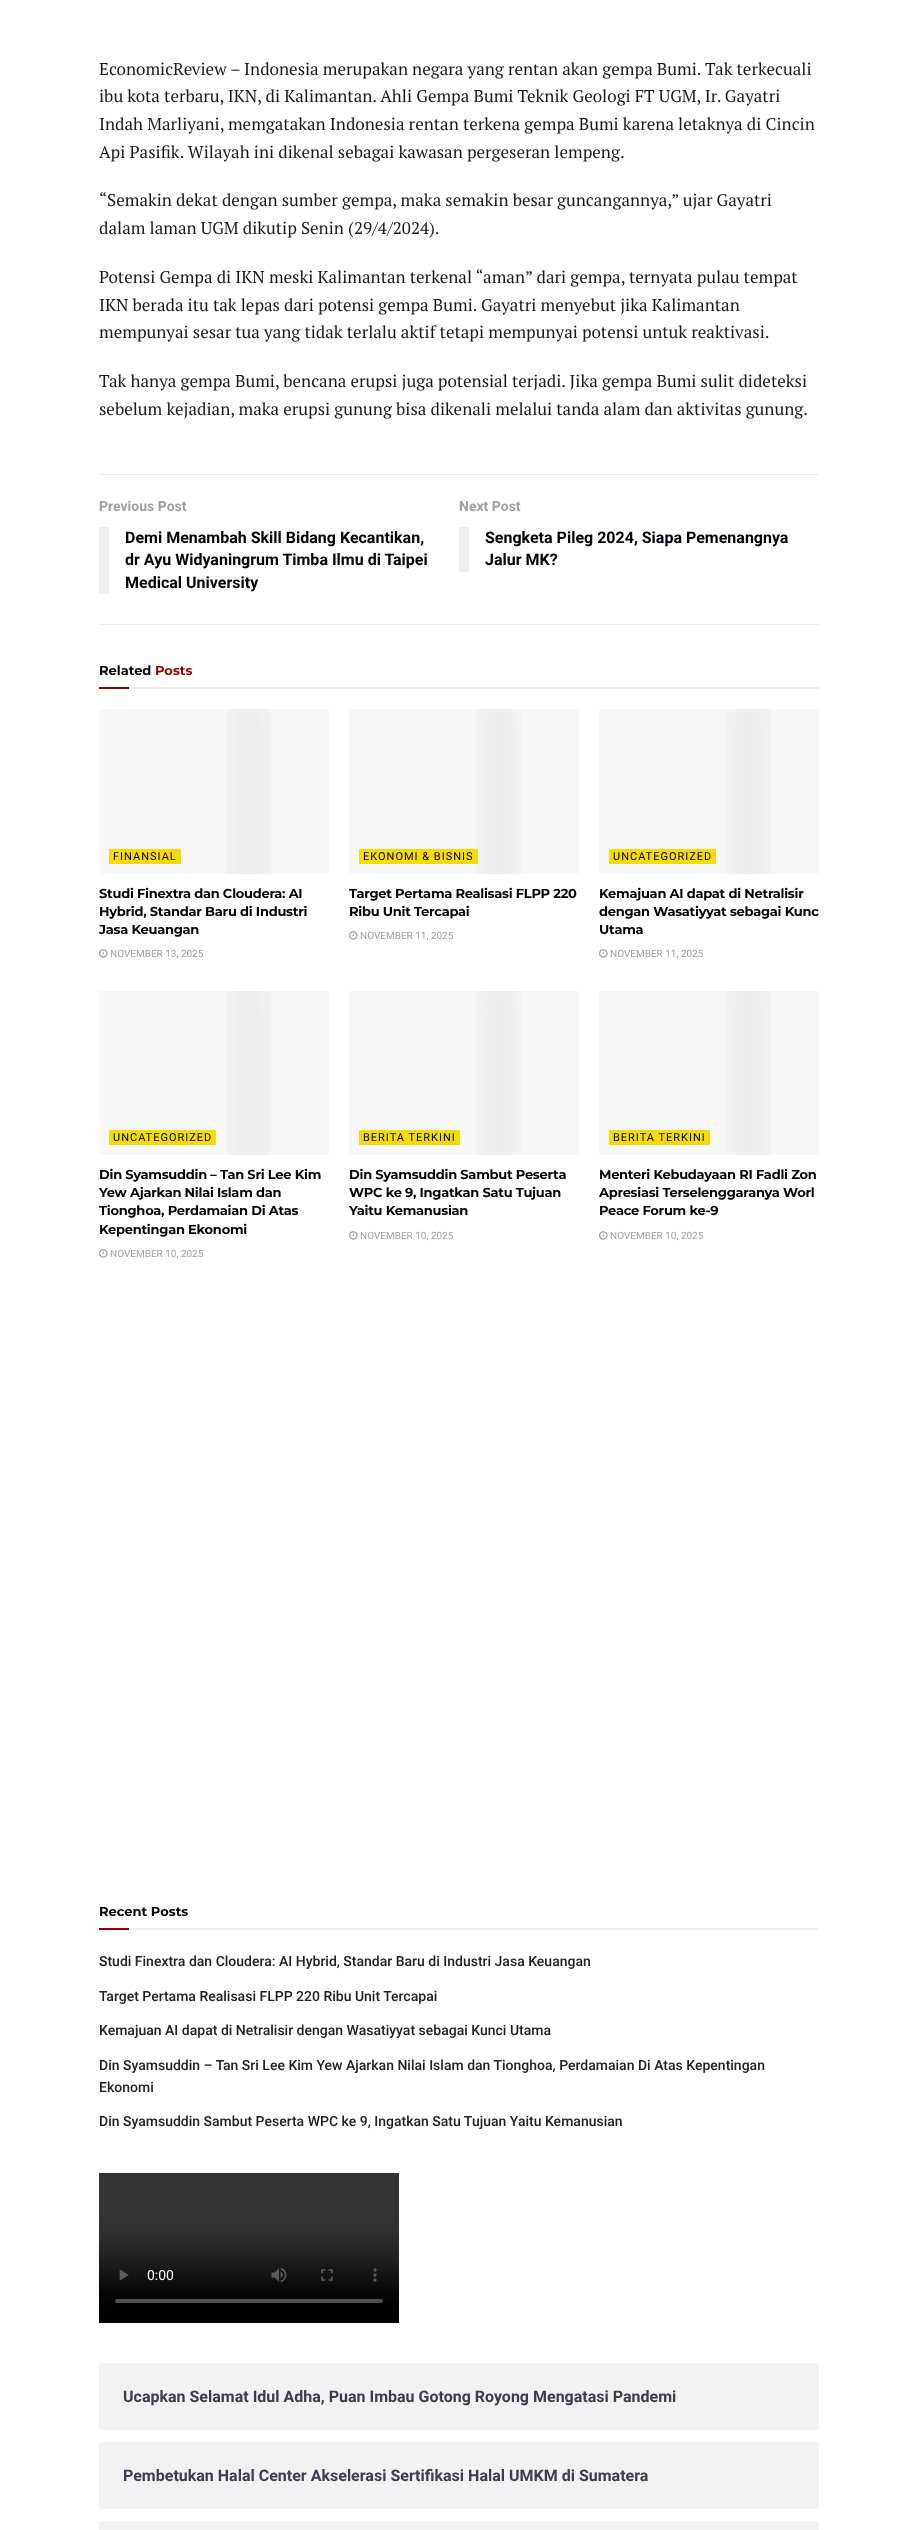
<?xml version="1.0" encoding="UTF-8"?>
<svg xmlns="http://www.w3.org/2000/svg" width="918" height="2530">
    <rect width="100%" height="100%" fill="#FFFFFF"/>
    <text font-family="PT Serif" font-size="17" fill="#191820">
        <tspan x="99" y="75">EconomicReview – Indonesia merupakan negara yang rentan akan gempa Bumi. Tak terkecuali</tspan>
        <tspan x="99" y="102">ibu kota terbaru, IKN, di Kalimantan. Ahli Gempa Bumi Teknik Geologi FT UGM, Ir. Gayatri</tspan>
        <tspan x="99" y="130">Indah Marliyani, memgatakan Indonesia rentan terkena gempa Bumi karena letaknya di Cincin</tspan>
        <tspan x="99" y="158">Api Pasifik. Wilayah ini dikenal sebagai kawasan pergeseran lempeng.</tspan>
    </text>
    <text font-family="PT Serif" font-size="17" fill="#191820">
        <tspan x="99" y="206">“Semakin dekat dengan sumber gempa, maka semakin besar guncangannya,” ujar Gayatri</tspan>
        <tspan x="99" y="234">dalam laman UGM dikutip Senin (29/4/2024).</tspan>
    </text>
    <text font-family="PT Serif" font-size="17" fill="#191820">
        <tspan x="99" y="283">Potensi Gempa di IKN meski Kalimantan terkenal “aman” dari gempa, ternyata pulau tempat</tspan>
        <tspan x="99" y="311">IKN berada itu tak lepas dari potensi gempa Bumi. Gayatri menyebut jika Kalimantan</tspan>
        <tspan x="99" y="338">mempunyai sesar tua yang tidak terlalu aktif tetapi mempunyai potensi untuk reaktivasi.</tspan>
    </text>
    <text font-family="PT Serif" font-size="17" fill="#191820">
        <tspan x="99" y="387">Tak hanya gempa Bumi, bencana erupsi juga potensial terjadi. Jika gempa Bumi sulit dideteksi</tspan>
        <tspan x="99" y="415">sebelum kejadian, maka erupsi gunung bisa dikenali melalui tanda alam dan aktivitas gunung.</tspan>
    </text>
    <rect x="99" y="474" width="720" height="1" fill="#EEEEEE"/>
    <rect x="99" y="624" width="720" height="1" fill="#EEEEEE"/>
    <text x="99" y="511" font-family="Roboto" font-size="14" font-weight="700" fill="#A0A0A0">Previous Post</text>
    <rect x="99" y="527" width="10" height="67" fill="#EEEEEE"/>
    <text font-family="Roboto" font-size="16" font-weight="700" fill="#02010A">
        <tspan x="125" y="543">Demi Menambah Skill Bidang Kecantikan,</tspan>
        <tspan x="125" y="565">dr Ayu Widyaningrum Timba Ilmu di Taipei</tspan>
        <tspan x="125" y="588">Medical University</tspan>
    </text>
    <text x="459" y="511" font-family="Roboto" font-size="14" font-weight="700" fill="#A0A0A0">Next Post</text>
    <rect x="459" y="527" width="10" height="45" fill="#EEEEEE"/>
    <text font-family="Roboto" font-size="16" font-weight="700" fill="#02010A">
        <tspan x="485" y="543">Sengketa Pileg 2024, Siapa Pemenangnya</tspan>
        <tspan x="485" y="565">Jalur MK?</tspan>
    </text>
    <rect x="129" y="687" width="690" height="2" fill="#EEEEEE"/>
    <text x="99" y="675" font-family="Montserrat" font-size="13" font-weight="100" fill="#02010A">Related</text>
    <text x="155" y="675" font-family="Montserrat" font-size="13" font-weight="100" fill="#930000">Posts</text>
    <rect x="99" y="687" width="30" height="2" fill="#930000"/>
    <rect x="99" y="709" width="230" height="165" fill="#F7F7F7"/>
    <image x="226" y="709" width="45" height="165" href="img_01.png"/>
    <rect x="109" y="849" width="72" height="15" fill="#F6DA09"/>
    <text x="113" y="860" font-family="Roboto" font-size="11" letter-spacing="1" fill="#02010A">FINANSIAL</text>
    <text font-family="Montserrat" font-size="13" font-weight="100" letter-spacing="-0.25" fill="#02010A">
        <tspan x="99" y="898">Studi Finextra dan Cloudera: AI</tspan>
        <tspan x="99" y="916">Hybrid, Standar Baru di Industri</tspan>
        <tspan x="99" y="934">Jasa Keuangan</tspan>
    </text>
    <image x="99" y="949" width="9" height="9" href="img_02.png"/>
    <text x="110" y="957" font-family="Roboto" font-size="10" fill="#A0A0A0">NOVEMBER 13, 2025</text>
    <rect x="349" y="709" width="230" height="165" fill="#F7F7F7"/>
    <image x="476" y="709" width="45" height="165" href="img_01.png"/>
    <rect x="359" y="849" width="119" height="15" fill="#F6DA09"/>
    <text x="363" y="860" font-family="Roboto" font-size="11" letter-spacing="1" fill="#02010A">EKONOMI &amp; BISNIS</text>
    <text font-family="Montserrat" font-size="13" font-weight="100" letter-spacing="-0.25" fill="#02010A">
        <tspan x="349" y="898">Target Pertama Realisasi FLPP 220</tspan>
        <tspan x="349" y="916">Ribu Unit Tercapai</tspan>
    </text>
    <image x="349" y="931" width="9" height="9" href="img_02.png"/>
    <text x="360" y="939" font-family="Roboto" font-size="10" fill="#A0A0A0">NOVEMBER 11, 2025</text>
    <rect x="599" y="709" width="220" height="165" fill="#F7F7F7"/>
    <image x="726" y="709" width="45" height="165" href="img_01.png"/>
    <rect x="609" y="849" width="107" height="15" fill="#F6DA09"/>
    <text x="613" y="860" font-family="Roboto" font-size="11" letter-spacing="1" fill="#02010A">UNCATEGORIZED</text>
    <text font-family="Montserrat" font-size="13" font-weight="100" letter-spacing="-0.25" fill="#02010A">
        <tspan x="599" y="898">Kemajuan AI dapat di Netralisir</tspan>
        <tspan x="599" y="916">dengan Wasatiyyat sebagai Kunc</tspan>
        <tspan x="599" y="934">Utama</tspan>
    </text>
    <image x="599" y="949" width="9" height="9" href="img_02.png"/>
    <text x="610" y="957" font-family="Roboto" font-size="10" fill="#A0A0A0">NOVEMBER 11, 2025</text>
    <rect x="99" y="991" width="230" height="164" fill="#F7F7F7"/>
    <image x="226" y="991" width="45" height="164" href="img_03.png"/>
    <rect x="109" y="1130" width="107" height="15" fill="#F6DA09"/>
    <text x="113" y="1141" font-family="Roboto" font-size="11" letter-spacing="1" fill="#02010A">UNCATEGORIZED</text>
    <text font-family="Montserrat" font-size="13" font-weight="100" letter-spacing="-0.25" fill="#02010A">
        <tspan x="99" y="1179">Din Syamsuddin – Tan Sri Lee Kim</tspan>
        <tspan x="99" y="1197">Yew Ajarkan Nilai Islam dan</tspan>
        <tspan x="99" y="1215">Tionghoa, Perdamaian Di Atas</tspan>
        <tspan x="99" y="1234">Kepentingan Ekonomi</tspan>
    </text>
    <image x="99" y="1249" width="9" height="9" href="img_02.png"/>
    <text x="110" y="1257" font-family="Roboto" font-size="10" fill="#A0A0A0">NOVEMBER 10, 2025</text>
    <rect x="349" y="991" width="230" height="164" fill="#F7F7F7"/>
    <image x="476" y="991" width="45" height="164" href="img_03.png"/>
    <rect x="359" y="1130" width="101" height="15" fill="#F6DA09"/>
    <text x="363" y="1141" font-family="Roboto" font-size="11" letter-spacing="1" fill="#02010A">BERITA TERKINI</text>
    <text font-family="Montserrat" font-size="13" font-weight="100" letter-spacing="-0.25" fill="#02010A">
        <tspan x="349" y="1179">Din Syamsuddin Sambut Peserta</tspan>
        <tspan x="349" y="1197">WPC ke 9, Ingatkan Satu Tujuan</tspan>
        <tspan x="349" y="1215">Yaitu Kemanusian</tspan>
    </text>
    <image x="349" y="1231" width="9" height="9" href="img_02.png"/>
    <text x="360" y="1239" font-family="Roboto" font-size="10" fill="#A0A0A0">NOVEMBER 10, 2025</text>
    <rect x="599" y="991" width="220" height="164" fill="#F7F7F7"/>
    <image x="726" y="991" width="45" height="164" href="img_03.png"/>
    <rect x="609" y="1130" width="101" height="15" fill="#F6DA09"/>
    <text x="613" y="1141" font-family="Roboto" font-size="11" letter-spacing="1" fill="#02010A">BERITA TERKINI</text>
    <text font-family="Montserrat" font-size="13" font-weight="100" letter-spacing="-0.25" fill="#02010A">
        <tspan x="599" y="1179">Menteri Kebudayaan RI Fadli Zon</tspan>
        <tspan x="599" y="1197">Apresiasi Terselenggaranya Worl</tspan>
        <tspan x="599" y="1215">Peace Forum ke-9</tspan>
    </text>
    <image x="599" y="1231" width="9" height="9" href="img_02.png"/>
    <text x="610" y="1239" font-family="Roboto" font-size="10" fill="#A0A0A0">NOVEMBER 10, 2025</text>
    <rect x="129" y="1928" width="690" height="2" fill="#EEEEEE"/>
    <text x="99" y="1916" font-family="Montserrat" font-size="13" font-weight="100" fill="#02010A">Recent Posts</text>
    <rect x="99" y="1928" width="30" height="2" fill="#930000"/>
    <text x="99" y="1966" font-family="Roboto" font-size="14" font-weight="500" fill="#212121">Studi Finextra dan Cloudera: AI Hybrid, Standar Baru di Industri Jasa Keuangan</text>
    <text x="99" y="2001" font-family="Roboto" font-size="14" font-weight="500" fill="#212121">Target Pertama Realisasi FLPP 220 Ribu Unit Tercapai</text>
    <text x="99" y="2035" font-family="Roboto" font-size="14" font-weight="500" fill="#212121">Kemajuan AI dapat di Netralisir dengan Wasatiyyat sebagai Kunci Utama</text>
    <text font-family="Roboto" font-size="14" font-weight="500" fill="#212121">
        <tspan x="99" y="2070">Din Syamsuddin – Tan Sri Lee Kim Yew Ajarkan Nilai Islam dan Tionghoa, Perdamaian Di Atas Kepentingan</tspan>
        <tspan x="99" y="2092">Ekonomi</tspan>
    </text>
    <text x="99" y="2126" font-family="Roboto" font-size="14" font-weight="500" fill="#212121">Din Syamsuddin Sambut Peserta WPC ke 9, Ingatkan Satu Tujuan Yaitu Kemanusian</text>
    <image x="99" y="2173" width="300" height="150" href="img_04.png"/>
    <rect x="99" y="2363" width="720" height="67" rx="3" fill="#F0F2F4"/>
    <text x="123" y="2402" font-family="Roboto" font-size="16" font-weight="700" fill="#393F4C">Ucapkan Selamat Idul Adha, Puan Imbau Gotong Royong Mengatasi Pandemi</text>
    <rect x="99" y="2442" width="720" height="67" rx="3" fill="#F0F2F4"/>
    <text x="123" y="2481" font-family="Roboto" font-size="16" font-weight="700" fill="#393F4C">Pembetukan Halal Center Akselerasi Sertifikasi Halal UMKM di Sumatera</text>
    <rect x="99" y="2521" width="720" height="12" rx="3" fill="#F0F2F4"/>
</svg>
